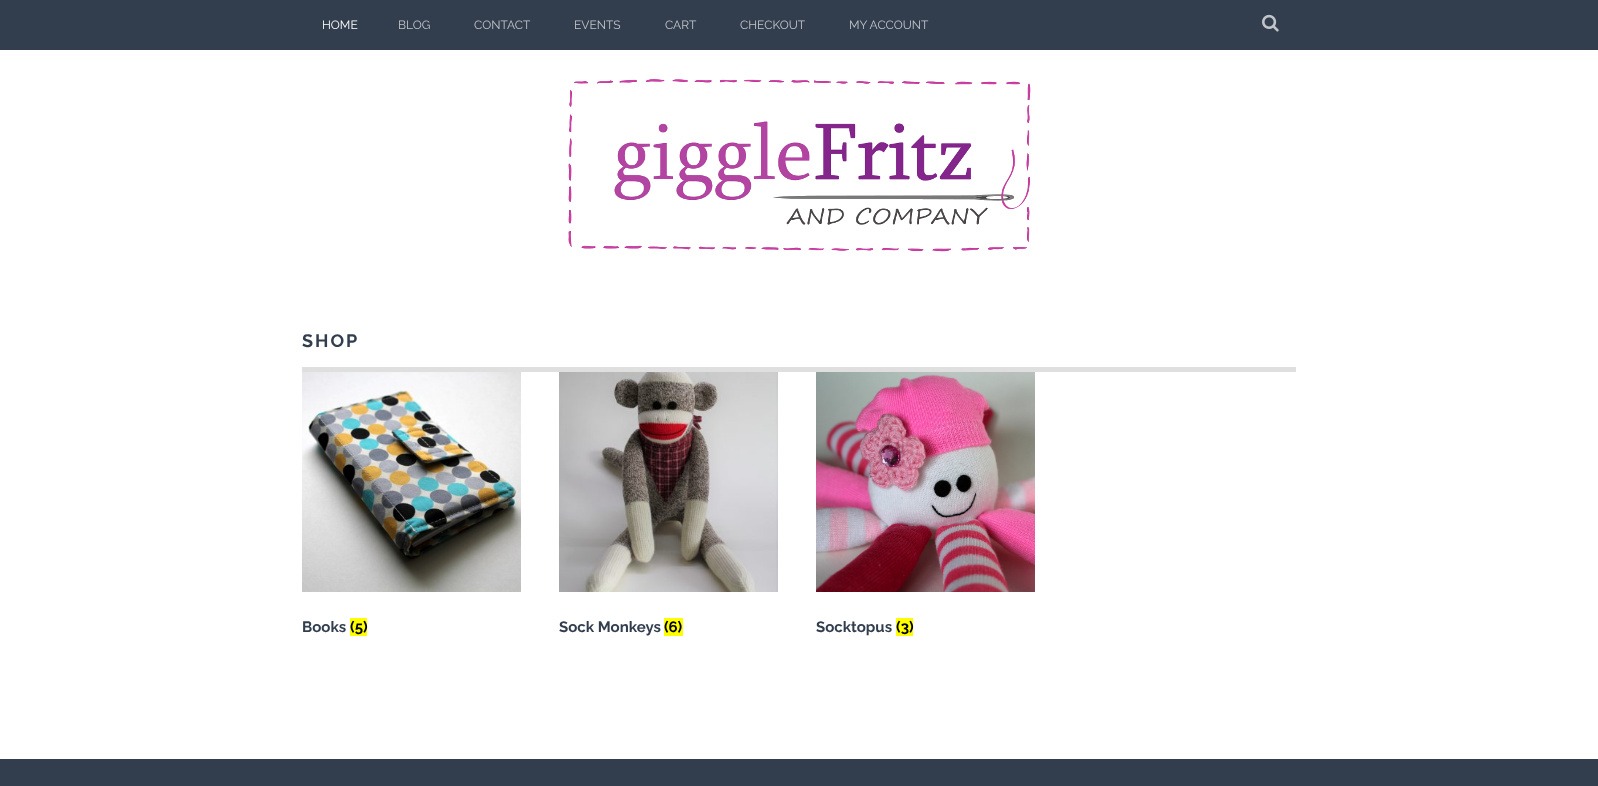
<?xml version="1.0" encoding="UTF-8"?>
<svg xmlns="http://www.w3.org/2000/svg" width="1598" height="786">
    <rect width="100%" height="100%" fill="#FFFFFF"/>
    <rect x="0" y="0" width="1598" height="50" fill="#323E4E"/>
    <text x="322" y="29" font-family="Raleway" font-size="12" fill="#FFFFFF">HOME</text>
    <text x="398" y="29" font-family="Raleway" font-size="12" fill="#C2C5CA">BLOG</text>
    <text x="474" y="29" font-family="Raleway" font-size="12" fill="#C2C5CA">CONTACT</text>
    <text x="574" y="29" font-family="Raleway" font-size="12" fill="#C2C5CA">EVENTS</text>
    <text x="665" y="29" font-family="Raleway" font-size="12" fill="#C2C5CA">CART</text>
    <text x="740" y="29" font-family="Raleway" font-size="12" fill="#C2C5CA">CHECKOUT</text>
    <text x="849" y="29" font-family="Raleway" font-size="12" fill="#C2C5CA">MY ACCOUNT</text>
    <image x="1262" y="14" width="17" height="18" href="img_01.png"/>
    <image x="568" y="79" width="463" height="173" href="img_02.png"/>
    <rect x="302" y="367" width="994" height="5" fill="#DFDFDF"/>
    <text x="302" y="347" font-family="Raleway" font-size="18" font-weight="700" letter-spacing="2" fill="#323E4E">SHOP</text>
    <image x="302" y="372" width="219" height="220" href="img_03.png"/>
    <text x="302" y="632" font-family="Raleway" font-size="15" font-weight="700" fill="#323E4E">Books</text>
    <rect x="350" y="618" width="17" height="18" fill="#FFFF00"/>
    <text x="350" y="632" font-family="Raleway" font-size="15" font-weight="700" fill="#000000">(5)</text>
    <image x="559" y="372" width="219" height="220" href="img_04.png"/>
    <text x="559" y="632" font-family="Raleway" font-size="15" font-weight="700" fill="#323E4E">Sock Monkeys</text>
    <rect x="664" y="618" width="19" height="18" fill="#FFFF00"/>
    <text x="664" y="632" font-family="Raleway" font-size="15" font-weight="700" fill="#000000">(6)</text>
    <image x="816" y="372" width="219" height="220" href="img_05.png"/>
    <text x="816" y="632" font-family="Raleway" font-size="15" font-weight="700" fill="#323E4E">Socktopus</text>
    <rect x="896" y="618" width="17" height="18" fill="#FFFF00"/>
    <text x="896" y="632" font-family="Raleway" font-size="15" font-weight="700" fill="#000000">(3)</text>
    <rect x="0" y="759" width="1598" height="27" fill="#323E4E"/>
</svg>
